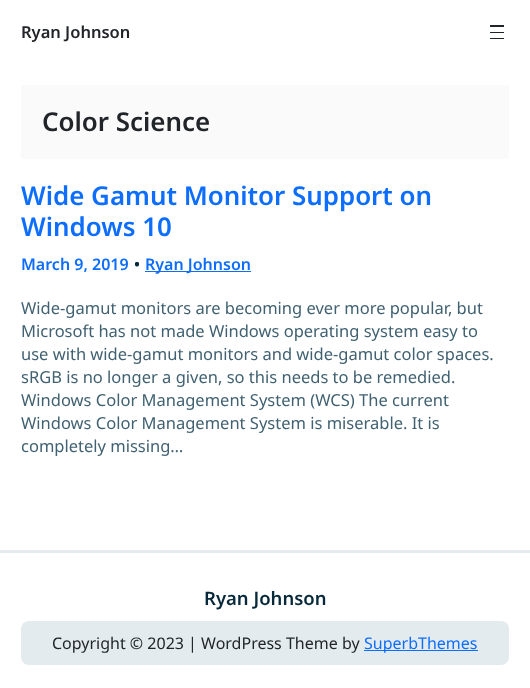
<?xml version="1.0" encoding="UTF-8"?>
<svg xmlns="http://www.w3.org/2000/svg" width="530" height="688">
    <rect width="100%" height="100%" fill="#FFFFFF"/>
    <text x="21" y="38" font-family="Noto Sans" font-size="16.5" font-weight="600" fill="#212529">Ryan Johnson</text>
    <rect x="490" y="25" width="14" height="2" fill="#212529"/>
    <rect x="490" y="32" width="14" height="1" fill="#212529"/>
    <rect x="490" y="38" width="14" height="1" fill="#212529"/>
    <rect x="21" y="85" width="488" height="74" fill="#FAFAFA"/>
    <text x="42" y="131" font-family="Noto Sans" font-size="25.9" font-weight="600" fill="#212529">Color Science</text>
    <text font-family="Noto Sans" font-size="25.9" font-weight="600" fill="#0D6EFD">
        <tspan x="21" y="205">Wide Gamut Monitor Support on</tspan>
        <tspan x="21" y="236">Windows 10</tspan>
    </text>
    <text x="21" y="270" font-family="Noto Sans" font-size="16" font-weight="600" fill="#0D6EFD">March 9, 2019</text>
    <text x="134" y="270" font-family="Noto Sans" font-size="16" font-weight="600" fill="#07293A">•</text>
    <rect x="145" y="271" width="106" height="1" fill="#0D6EFD"/>
    <text x="145" y="270" font-family="Noto Sans" font-size="16" font-weight="600" fill="#0D6EFD">Ryan Johnson</text>
    <text font-family="Noto Sans" font-size="16.5" fill="#406171">
        <tspan x="21" y="314">Wide-gamut monitors are becoming ever more popular, but</tspan>
        <tspan x="21" y="337">Microsoft has not made Windows operating system easy to</tspan>
        <tspan x="21" y="360">use with wide-gamut monitors and wide-gamut color spaces.</tspan>
        <tspan x="21" y="383">sRGB is no longer a given, so this needs to be remedied.</tspan>
        <tspan x="21" y="406">Windows Color Management System (WCS) The current</tspan>
        <tspan x="21" y="429">Windows Color Management System is miserable. It is</tspan>
        <tspan x="21" y="452">completely missing…</tspan>
    </text>
    <rect x="0" y="550" width="530" height="3" fill="#E4EBEE"/>
    <text x="204" y="605" font-family="Noto Sans" font-size="18.5" font-weight="600" fill="#07293A">Ryan Johnson</text>
    <rect x="21" y="621" width="488" height="44" rx="8" fill="#E4EBEE"/>
    <text x="52" y="649" font-family="Noto Sans" font-size="16" fill="#212529">Copyright © 2023 | WordPress Theme by</text>
    <rect x="364" y="650" width="114" height="1" fill="#0D6EFD"/>
    <text x="364" y="649" font-family="Noto Sans" font-size="16" fill="#0D6EFD">SuperbThemes</text>
</svg>
